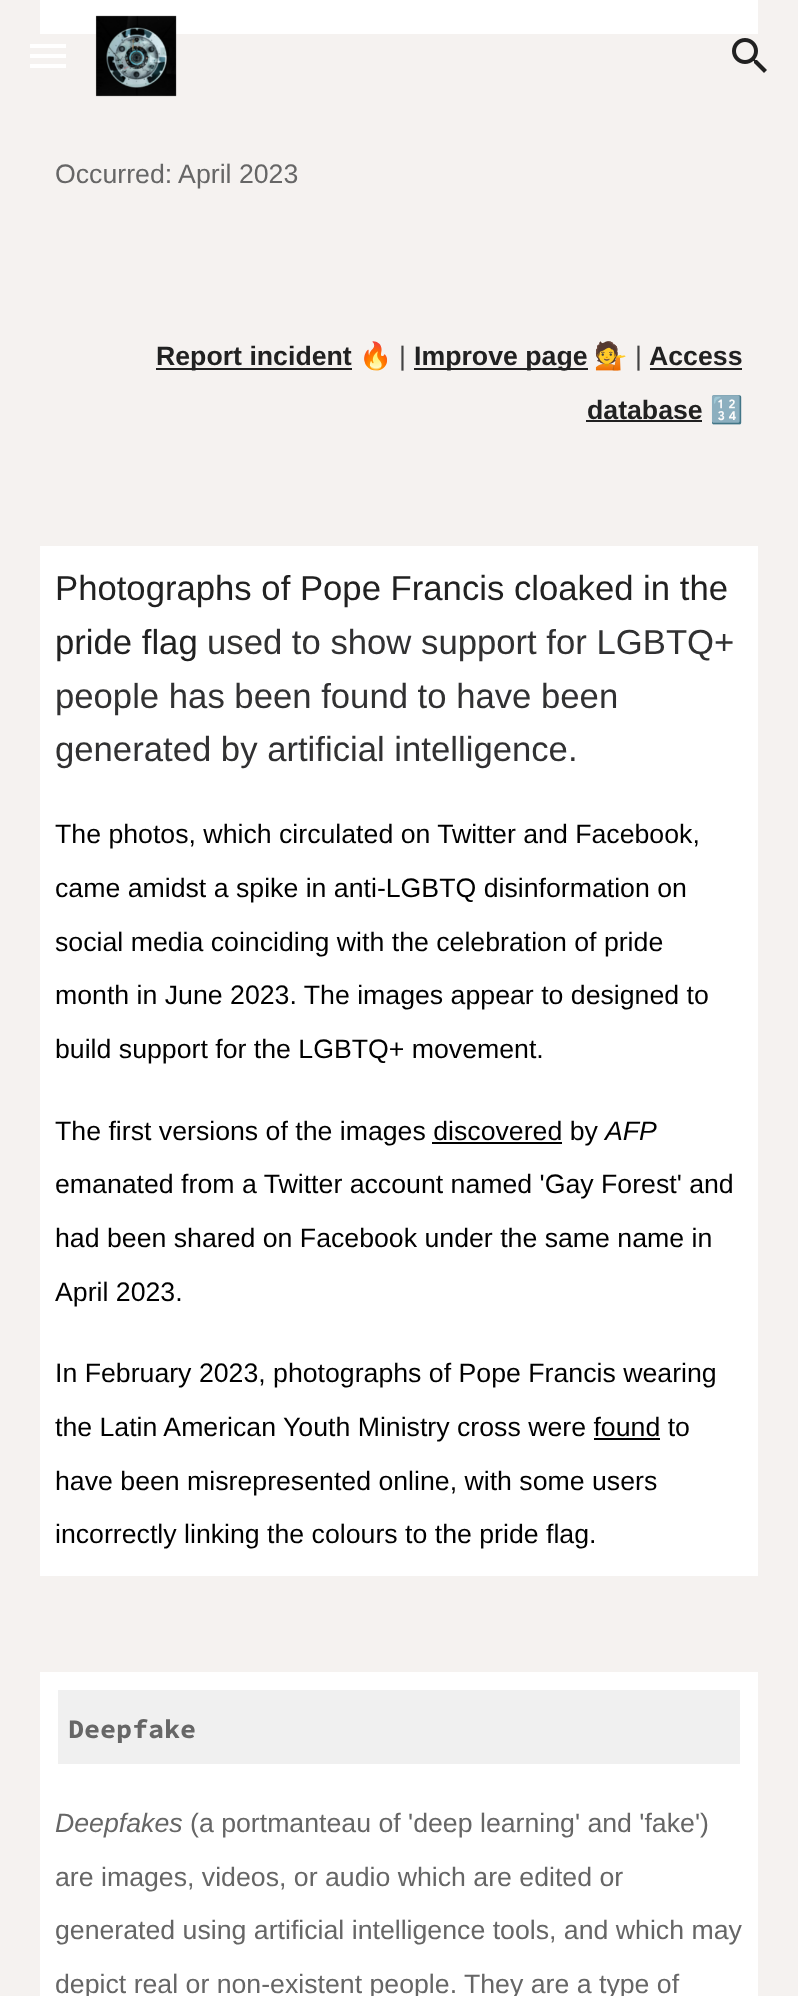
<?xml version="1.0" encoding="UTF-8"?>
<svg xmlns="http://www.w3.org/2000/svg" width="798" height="1996">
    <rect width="100%" height="100%" fill="#F5F2F0"/>
    <rect x="30" y="44" width="36" height="4" fill="#FFFFFF"/>
    <rect x="30" y="54" width="36" height="4" fill="#FFFFFF"/>
    <rect x="30" y="64" width="36" height="4" fill="#FFFFFF"/>
    <rect x="40" y="0" width="718" height="34" fill="#FFFFFF"/>
    <image x="95" y="15" width="82" height="82" href="img_01.png"/>
    <image x="732" y="38" width="35" height="35" href="img_02.png"/>
    <text x="55" y="183" font-family="Liberation Sans" font-size="26.7" fill="#666666">Occurred: April 2023</text>
    <rect x="156" y="368" width="196" height="2" fill="#212121"/>
    <text x="156" y="365" font-family="Liberation Sans" font-size="26.7" font-weight="700" fill="#212121">Report incident</text>
    <text x="359" y="365" font-family="Noto Color Emoji" font-size="26.7" fill="#434343">🔥</text>
    <text x="399" y="365" font-family="Liberation Sans" font-size="26.7" fill="#434343">|</text>
    <rect x="414" y="368" width="174" height="2" fill="#212121"/>
    <text x="414" y="365" font-family="Liberation Sans" font-size="26.7" font-weight="700" fill="#212121">Improve page</text>
    <text x="594" y="365" font-family="Noto Color Emoji" font-size="26.7" fill="#434343">💁</text>
    <text x="635" y="365" font-family="Liberation Sans" font-size="26.7" fill="#434343">|</text>
    <text x="649" y="365" font-family="Liberation Sans" font-size="26.7" font-weight="700" fill="#212121">Access</text>
    <rect x="650" y="368" width="92" height="2" fill="#212121"/>
    <text x="587" y="419" font-family="Liberation Sans" font-size="26.7" font-weight="700" fill="#212121">database</text>
    <rect x="586" y="420" width="116" height="2" fill="#212121"/>
    <text x="710" y="419" font-family="Noto Color Emoji" font-size="26.7" fill="#434343">🔢</text>
    <rect x="40" y="546" width="718" height="1030" fill="#FFFFFF"/>
    <text font-family="Liberation Sans" font-size="34.7" fill="#212121">
        <tspan x="55" y="600">Photographs of Pope Francis cloaked in the</tspan>
        <tspan x="55" y="654">pride flag</tspan>
    </text>
    <text x="207" y="654" font-family="Liberation Sans" font-size="34.7" fill="#313132">used to show support for LGBTQ+</text>
    <text font-family="Liberation Sans" font-size="34.7" fill="#313132">
        <tspan x="55" y="708">people has been found to have been</tspan>
        <tspan x="55" y="761">generated by artificial intelligence.</tspan>
    </text>
    <text x="55" y="843" font-family="Liberation Sans" font-size="26.7" fill="#000000">The photos, which circulated on Twitter and Facebook,</text>
    <text x="55" y="897" font-family="Liberation Sans" font-size="26.7" fill="#000000">came amidst a spike in anti-LGBTQ disinformation on</text>
    <text font-family="Liberation Sans" font-size="26.7" fill="#000000">
        <tspan x="55" y="951">social media coinciding with the celebration of pride</tspan>
        <tspan x="55" y="1004">month in June 2023. The images appear to designed to</tspan>
    </text>
    <text x="55" y="1058" font-family="Liberation Sans" font-size="26.7" fill="#000000">build support for the LGBTQ+ movement.</text>
    <text x="55" y="1140" font-family="Liberation Sans" font-size="26.7" fill="#000000">The first versions of the images discovered by</text>
    <text x="605" y="1140" font-family="Liberation Sans" font-size="26.7" font-style="italic" fill="#000000">AFP</text>
    <rect x="432" y="1142" width="130" height="2" fill="#000000"/>
    <text x="55" y="1193" font-family="Liberation Sans" font-size="26.7" fill="#000000">emanated from a Twitter account named 'Gay Forest' and</text>
    <text x="55" y="1247" font-family="Liberation Sans" font-size="26.7" fill="#000000">had been shared on Facebook under the same name in</text>
    <text x="55" y="1301" font-family="Liberation Sans" font-size="26.7" fill="#000000">April 2023.</text>
    <text x="55" y="1382" font-family="Liberation Sans" font-size="26.7" fill="#000000">In February 2023, photographs of Pope Francis wearing</text>
    <text x="55" y="1436" font-family="Liberation Sans" font-size="26.7" fill="#000000">the Latin American Youth Ministry cross were found to</text>
    <rect x="594" y="1438" width="66" height="2" fill="#000000"/>
    <text font-family="Liberation Sans" font-size="26.7" fill="#000000">
        <tspan x="55" y="1490">have been misrepresented online, with some users</tspan>
        <tspan x="55" y="1543">incorrectly linking the colours to the pride flag.</tspan>
    </text>
    <rect x="40" y="1672" width="718" height="324" fill="#FFFFFF"/>
    <rect x="58" y="1690" width="682" height="74" fill="#F0F0F0"/>
    <text x="68" y="1738" font-family="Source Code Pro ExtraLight" font-size="26.7" font-weight="700" fill="#666666">Deepfake</text>
    <text x="55" y="1832" font-family="Liberation Sans" font-size="26.7" font-style="italic" fill="#666666">Deepfakes</text>
    <text x="190" y="1832" font-family="Liberation Sans" font-size="26.7" fill="#666666">(a portmanteau of 'deep learning' and 'fake')</text>
    <text font-family="Liberation Sans" font-size="26.7" fill="#666666">
        <tspan x="55" y="1886">are images, videos, or audio which are edited or</tspan>
        <tspan x="55" y="1939">generated using artificial intelligence tools, and which may</tspan>
    </text>
    <text x="55" y="1993" font-family="Liberation Sans" font-size="26.7" fill="#666666">depict real or non-existent people. They are a type of</text>
</svg>
